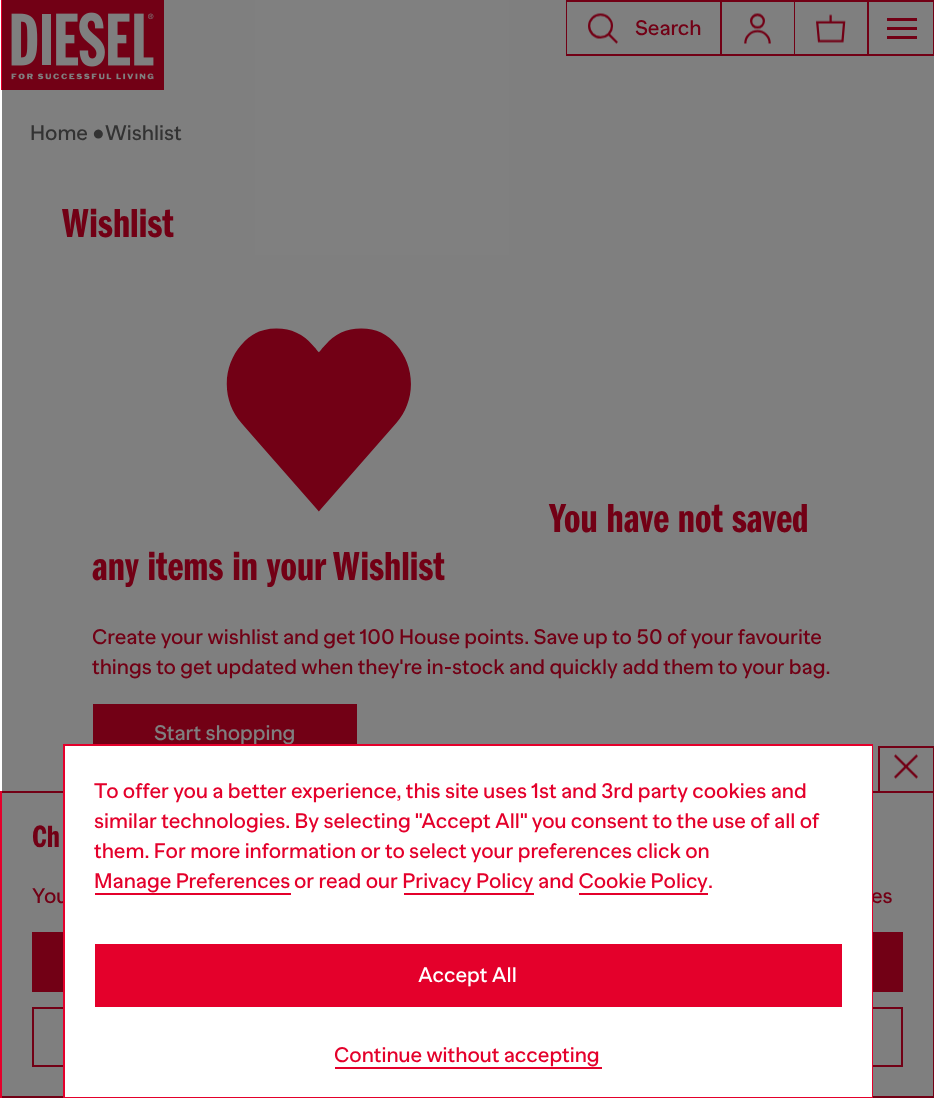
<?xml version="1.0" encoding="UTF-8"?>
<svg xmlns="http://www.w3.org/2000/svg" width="934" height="1098">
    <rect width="100%" height="100%" fill="#FFFFFF"/>
    <image x="1" y="0" width="163" height="90" href="img_01.png"/>
    <rect x="566" y="0" width="1" height="56" fill="#E4002B"/>
    <rect x="567" y="0" width="153" height="2" fill="#E4002B"/>
    <rect x="567" y="54" width="153" height="2" fill="#E4002B"/>
    <image x="588" y="13" width="30" height="31" href="img_02.png"/>
    <text x="635" y="35" font-family="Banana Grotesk" font-size="21" font-weight="500" fill="#E4002B">Search</text>
    <rect x="720" y="0" width="2" height="56" fill="#E4002B"/>
    <rect x="722" y="0" width="72" height="2" fill="#E4002B"/>
    <rect x="722" y="54" width="72" height="2" fill="#E4002B"/>
    <image x="744" y="13" width="27" height="31" href="img_03.png"/>
    <rect x="794" y="0" width="1" height="56" fill="#E4002B"/>
    <rect x="795" y="0" width="72" height="2" fill="#E4002B"/>
    <rect x="795" y="54" width="72" height="2" fill="#E4002B"/>
    <image x="816" y="14" width="30" height="29" href="img_04.png"/>
    <rect x="868" y="1" width="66" height="54" fill="none" stroke="#E4002B" stroke-width="2"/>
    <rect x="887" y="18" width="30" height="3" fill="#E4002B"/>
    <rect x="887" y="27" width="30" height="3" fill="#E4002B"/>
    <rect x="887" y="36" width="30" height="3" fill="#E4002B"/>
    <text x="30" y="140" font-family="Banana Grotesk" font-size="21" font-weight="500" fill="#666666">Home</text>
    <text x="92" y="140" font-family="Liberation Sans" font-size="21" fill="#666666">●</text>
    <text x="105" y="140" font-family="Banana Grotesk" font-size="21" font-weight="500" fill="#666666">Wishlist</text>
    <text x="62" y="237" font-family="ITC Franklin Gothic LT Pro" font-size="42" font-weight="600" fill="#E4002B">Wishlist</text>
    <image x="226" y="328" width="185" height="184" href="img_05.png"/>
    <text x="549" y="532" font-family="ITC Franklin Gothic LT Pro" font-size="42" font-weight="600" fill="#E4002B">You have not saved</text>
    <text x="92" y="580" font-family="ITC Franklin Gothic LT Pro" font-size="42" font-weight="600" fill="#E4002B">any items in your Wishlist</text>
    <text font-family="Banana Grotesk" font-size="21" font-weight="500" fill="#E4002B">
        <tspan x="92" y="644">Create your wishlist and get 100 House points. Save up to 50 of your favourite</tspan>
        <tspan x="92" y="674">things to get updated when they're in-stock and quickly add them to your bag.</tspan>
    </text>
    <rect x="93" y="704" width="264" height="40" fill="#E4002B"/>
    <text x="154" y="740" font-family="Banana Grotesk" font-size="21" font-weight="500" fill="#FFFFFF">Start shopping</text>
    <rect x="878" y="746" width="56" height="2" fill="#E4002B"/>
    <rect x="933" y="746" width="1" height="45" fill="#E4002B"/>
    <rect x="878" y="746" width="2" height="45" fill="#E4002B"/>
    <image x="894" y="754" width="24" height="25" href="img_06.png"/>
    <rect x="1" y="792" width="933" height="305" fill="none" stroke="#E4002B" stroke-width="2"/>
    <text x="32" y="847" font-family="ITC Franklin Gothic LT Pro" font-size="32" font-weight="600" fill="#E4002B">Ch</text>
    <text x="32" y="903" font-family="Banana Grotesk" font-size="21" font-weight="500" fill="#E4002B">You</text>
    <text x="871" y="903" font-family="Banana Grotesk" font-size="21" font-weight="500" fill="#E4002B">es</text>
    <rect x="32" y="932" width="871" height="60" fill="#E4002B"/>
    <rect x="33" y="1008" width="869" height="58" fill="none" stroke="#E4002B" stroke-width="2"/>
    <rect x="2" y="0" width="932" height="1098" fill="#000000" fill-opacity="0.5"/>
    <rect x="64" y="745" width="808" height="352" fill="none" stroke="#E4002B" stroke-width="2"/>
    <rect x="65" y="746" width="807" height="351" fill="#FFFFFF"/>
    <text font-family="Banana Grotesk" font-size="21" font-weight="500" fill="#E4002B">
        <tspan x="94" y="798">To offer you a better experience, this site uses 1st and 3rd party cookies and</tspan>
        <tspan x="94" y="828">similar technologies. By selecting "Accept All" you consent to the use of all of</tspan>
        <tspan x="94" y="858">them. For more information or to select your preferences click on</tspan>
        <tspan x="94" y="888">Manage Preferences</tspan>
    </text>
    <rect x="95" y="893" width="196" height="2" fill="#E4002B"/>
    <text x="294" y="888" font-family="Banana Grotesk" font-size="21" font-weight="500" fill="#E4002B">or read our Privacy Policy</text>
    <text x="538" y="888" font-family="Banana Grotesk" font-size="21" font-weight="500" fill="#E4002B">and Cookie Policy</text>
    <text x="708" y="888" font-family="Banana Grotesk" font-size="21" font-weight="500" fill="#E4002B">.</text>
    <rect x="404" y="893" width="130" height="2" fill="#E4002B"/>
    <rect x="579" y="893" width="129" height="2" fill="#E4002B"/>
    <rect x="95" y="944" width="747" height="63" fill="#E4002B"/>
    <text x="418" y="982" font-family="Banana Grotesk" font-size="21" font-weight="500" fill="#FFFFFF">Accept All</text>
    <text x="334" y="1062" font-family="Banana Grotesk" font-size="21" font-weight="500" fill="#E4002B">Continue without accepting</text>
    <rect x="335" y="1067" width="267" height="2" fill="#E4002B"/>
</svg>
